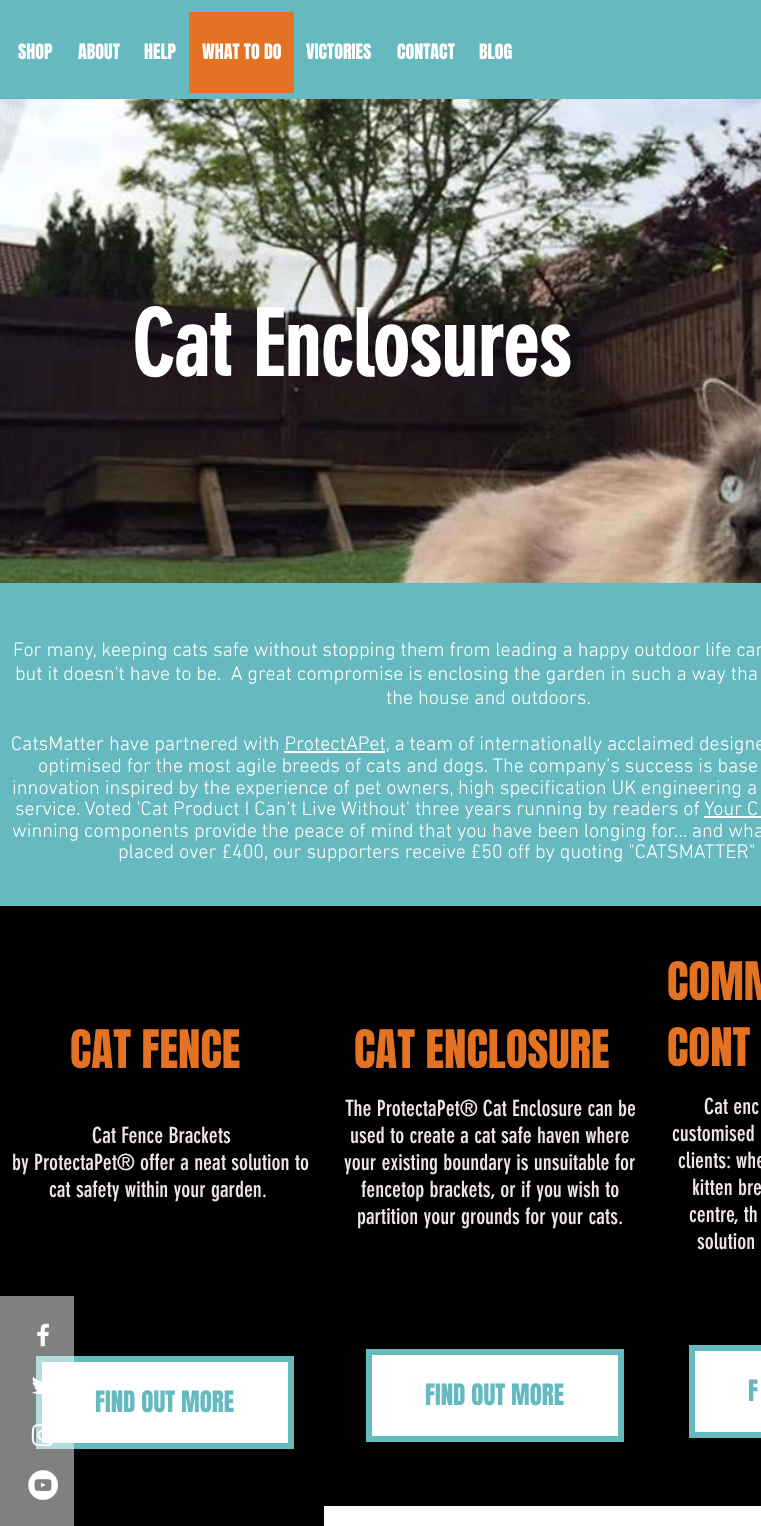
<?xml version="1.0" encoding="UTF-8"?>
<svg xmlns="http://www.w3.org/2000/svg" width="761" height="1526">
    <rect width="100%" height="100%" fill="#66B9BF"/>
    <text x="18" y="59" font-family="Anton" font-size="18" fill="#FFFFFF">SHOP</text>
    <text x="78" y="59" font-family="Anton" font-size="18" fill="#FFFFFF">ABOUT</text>
    <text x="144" y="59" font-family="Anton" font-size="18" fill="#FFFFFF">HELP</text>
    <rect x="189" y="12" width="105" height="81" fill="#E37222"/>
    <text x="202" y="59" font-family="Anton" font-size="18" fill="#FFFFFF">WHAT TO DO</text>
    <text x="306" y="59" font-family="Anton" font-size="18" fill="#FFFFFF">VICTORIES</text>
    <text x="397" y="59" font-family="Anton" font-size="18" fill="#FFFFFF">CONTACT</text>
    <text x="479" y="59" font-family="Anton" font-size="18" fill="#FFFFFF">BLOG</text>
    <image x="0" y="99" width="761" height="484" href="img_01.png"/>
    <text x="132" y="376" font-family="'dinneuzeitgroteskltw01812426'" font-size="90" font-weight="700" fill="#FFFFFF">Cat Enclosures</text>
    <text x="13" y="656" font-family="'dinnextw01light'" font-size="20" font-weight="300" fill="#FFFFFF">For many, keeping cats safe without stopping them from leading a happy outdoor life can</text>
    <text x="15" y="680" font-family="'dinnextw01light'" font-size="20" font-weight="300" fill="#FFFFFF" xml:space="preserve">but it doesn't have to be.  A great compromise is enclosing the garden in such a way tha</text>
    <text x="386" y="704" font-family="'dinnextw01light'" font-size="20" font-weight="300" fill="#FFFFFF">the house and outdoors.</text>
    <text x="11" y="750" font-family="'dinnextw01light'" font-size="20" font-weight="300" fill="#FFFFFF">CatsMatter have partnered with ProtectAPet, a team of internationally acclaimed designe</text>
    <rect x="284" y="751" width="101" height="2" fill="#FFFFFF"/>
    <text x="38" y="772" font-family="'dinnextw01light'" font-size="20" font-weight="300" fill="#FFFFFF">optimised for the most agile breeds of cats and dogs. The company’s success is base</text>
    <text x="12" y="794" font-family="'dinnextw01light'" font-size="20" font-weight="300" fill="#FFFFFF">innovation inspired by the experience of pet owners, high specification UK engineering a</text>
    <text x="15" y="815" font-family="'dinnextw01light'" font-size="20" font-weight="300" fill="#FFFFFF">service. Voted 'Cat Product I Can't Live Without' three years running by readers of Your C</text>
    <rect x="704" y="816" width="57" height="2" fill="#FFFFFF"/>
    <text x="12" y="837" font-family="'dinnextw01light'" font-size="20" font-weight="300" fill="#FFFFFF">winning components provide the peace of mind that you have been longing for... and wha</text>
    <text x="118" y="858" font-family="'dinnextw01light'" font-size="20" font-weight="300" fill="#FFFFFF">placed over £400, our supporters receive £50 off by quoting "CATSMATTER"</text>
    <rect x="0" y="906" width="761" height="600" fill="#000000"/>
    <text x="70" y="1068" font-family="Anton" font-size="45" fill="#E37222">CAT FENCE</text>
    <text x="92" y="1143" font-family="'dinneuzeitgroteskltw01812426'" font-size="22" fill="#EEE6E6">Cat Fence Brackets</text>
    <text x="12" y="1170" font-family="'dinneuzeitgroteskltw01812426'" font-size="22" fill="#EEE6E6">by ProtectaPet® offer a neat solution to</text>
    <text x="49" y="1197" font-family="'dinneuzeitgroteskltw01812426'" font-size="22" fill="#EEE6E6">cat safety within your garden.</text>
    <rect x="39" y="1359" width="252" height="87" fill="#FFFFFF" stroke="#66B9BF" stroke-width="6"/>
    <text x="95" y="1412" font-family="Anton" font-size="25" fill="#66B9BF">FIND OUT MORE</text>
    <text x="354" y="1068" font-family="Anton" font-size="45" fill="#E37222">CAT ENCLOSURE</text>
    <text x="345" y="1116" font-family="'dinneuzeitgroteskltw01812426'" font-size="22" fill="#EEE6E6">The ProtectaPet® Cat Enclosure can be</text>
    <text x="350" y="1143" font-family="'dinneuzeitgroteskltw01812426'" font-size="22" fill="#EEE6E6">used to create a cat safe haven where</text>
    <text x="344" y="1170" font-family="'dinneuzeitgroteskltw01812426'" font-size="22" fill="#EEE6E6">your existing boundary is unsuitable for</text>
    <text x="361" y="1197" font-family="'dinneuzeitgroteskltw01812426'" font-size="22" fill="#EEE6E6">fencetop brackets, or if you wish to</text>
    <text x="357" y="1224" font-family="'dinneuzeitgroteskltw01812426'" font-size="22" fill="#EEE6E6">partition your grounds for your cats.</text>
    <rect x="369" y="1352" width="252" height="87" fill="#FFFFFF" stroke="#66B9BF" stroke-width="6"/>
    <text x="425" y="1405" font-family="Anton" font-size="25" fill="#66B9BF">FIND OUT MORE</text>
    <text font-family="Anton" font-size="45" fill="#E37222">
        <tspan x="667" y="1000">COMM</tspan>
        <tspan x="667" y="1066">CONT</tspan>
    </text>
    <text x="704" y="1114" font-family="'dinneuzeitgroteskltw01812426'" font-size="22" fill="#EEE6E6">Cat enc</text>
    <text x="672" y="1141" font-family="'dinneuzeitgroteskltw01812426'" font-size="22" fill="#EEE6E6">customised</text>
    <text x="678" y="1168" font-family="'dinneuzeitgroteskltw01812426'" font-size="22" fill="#EEE6E6">clients: whe</text>
    <text x="692" y="1195" font-family="'dinneuzeitgroteskltw01812426'" font-size="22" fill="#EEE6E6">kitten bre</text>
    <text x="689" y="1222" font-family="'dinneuzeitgroteskltw01812426'" font-size="22" fill="#EEE6E6">centre, th</text>
    <text x="697" y="1249" font-family="'dinneuzeitgroteskltw01812426'" font-size="22" fill="#EEE6E6">solution</text>
    <rect x="692" y="1348" width="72" height="87" fill="#FFFFFF" stroke="#66B9BF" stroke-width="6"/>
    <text x="748" y="1401" font-family="Anton" font-size="25" fill="#66B9BF">F</text>
    <rect x="0" y="1506" width="324" height="20" fill="#000000"/>
    <rect x="324" y="1506" width="437" height="20" fill="#FFFFFE"/>
    <rect x="0" y="1296" width="74" height="230" fill="#FFFFFF" fill-opacity="0.5"/>
    <image x="37" y="1323" width="13" height="24" href="img_02.png"/>
    <image x="32" y="1376" width="10" height="19" href="img_03.png"/>
    <image x="31" y="1423" width="22" height="24" href="img_04.png"/>
    <image x="28" y="1470" width="30" height="30" href="img_05.png"/>
</svg>
